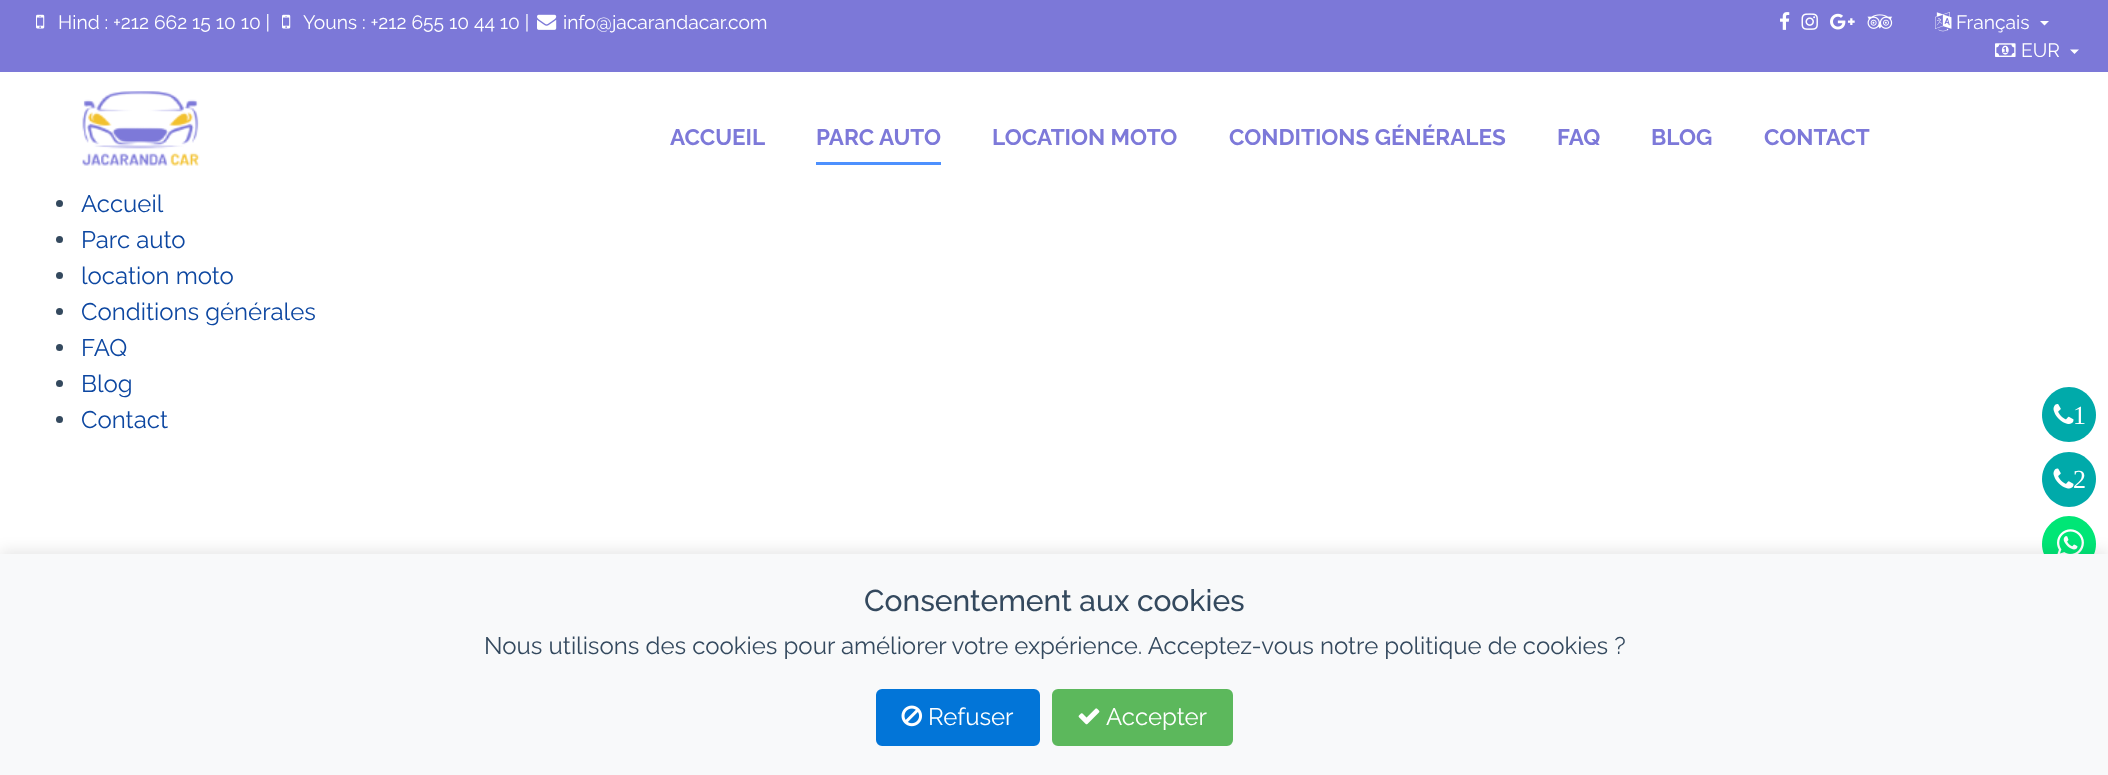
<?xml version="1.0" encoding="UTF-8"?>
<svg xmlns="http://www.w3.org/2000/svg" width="2108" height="775">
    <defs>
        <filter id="blur1" x="-50%" y="-200%" width="200%" height="500%"><feGaussianBlur stdDeviation="7.5"/></filter>
    </defs>
    <rect width="100%" height="100%" fill="#FFFFFF"/>
    <rect x="0" y="0" width="2108" height="72" fill="#7C78D8"/>
    <image x="36" y="14" width="9" height="15" href="img_01.png"/>
    <text x="58" y="29" font-family="Raleway" font-size="19.25" fill="#FFFFFF">Hind : +212 662 15 10 10 |</text>
    <image x="282" y="14" width="9" height="15" href="img_01.png"/>
    <text x="303" y="29" font-family="Raleway" font-size="19.25" fill="#FFFFFF">Youns : +212 655 10 44 10 |</text>
    <image x="537" y="14" width="20" height="16" href="img_02.png"/>
    <text x="563" y="29" font-family="Raleway" font-size="19.25" fill="#FFFFFF">info@jacarandacar.com</text>
    <image x="1780" y="12" width="10" height="18" href="img_03.png"/>
    <image x="1801" y="13" width="17" height="17" href="img_04.png"/>
    <image x="1830" y="13" width="25" height="17" href="img_05.png"/>
    <image x="1867" y="14" width="26" height="15" href="img_06.png"/>
    <image x="1935" y="12" width="17" height="20" href="img_07.png"/>
    <text x="1956" y="29" font-family="Raleway" font-size="19.25" fill="#FFFFFF">Français</text>
    <path d="M 2040 21 H 2049 L 2044.5 25.5 Z" fill="#FFFFFF"/>
    <image x="1995" y="43" width="21" height="14" href="img_08.png"/>
    <text x="2021" y="57" font-family="Raleway" font-size="19.25" fill="#FFFFFF">EUR</text>
    <path d="M 2070 49.5 H 2079 L 2074.5 54 Z" fill="#FFFFFF"/>
    <image x="82" y="91" width="118" height="75" href="img_09.png"/>
    <text x="670" y="145" font-family="Raleway" font-size="22.5" font-weight="700" fill="#7D79D9">ACCUEIL</text>
    <text x="816" y="145" font-family="Raleway" font-size="22.5" font-weight="700" fill="#7D79D9">PARC AUTO</text>
    <rect x="816" y="162" width="125" height="3" fill="#4D90FE"/>
    <text x="992" y="145" font-family="Raleway" font-size="22.5" font-weight="700" fill="#7D79D9">LOCATION MOTO</text>
    <text x="1229" y="145" font-family="Raleway" font-size="22.5" font-weight="700" fill="#7D79D9">CONDITIONS GÉNÉRALES</text>
    <text x="1557" y="145" font-family="Raleway" font-size="22.5" font-weight="700" fill="#7D79D9">FAQ</text>
    <text x="1651" y="145" font-family="Raleway" font-size="22.5" font-weight="700" fill="#7D79D9">BLOG</text>
    <text x="1764" y="145" font-family="Raleway" font-size="22.5" font-weight="700" fill="#7D79D9">CONTACT</text>
    <circle cx="59.5" cy="203.5" r="3.5" fill="#34495E"/>
    <text x="81" y="212" font-family="Raleway" font-size="24" fill="#0D47A1">Accueil</text>
    <circle cx="59.5" cy="239.5" r="3.5" fill="#34495E"/>
    <text x="81" y="248" font-family="Raleway" font-size="24" fill="#0D47A1">Parc auto</text>
    <circle cx="59.5" cy="275.5" r="3.5" fill="#34495E"/>
    <text x="81" y="284" font-family="Raleway" font-size="24" fill="#0D47A1">location moto</text>
    <circle cx="59.5" cy="311.5" r="3.5" fill="#34495E"/>
    <text x="81" y="320" font-family="Raleway" font-size="24" fill="#0D47A1">Conditions générales</text>
    <circle cx="59.5" cy="347.5" r="3.5" fill="#34495E"/>
    <text x="81" y="356" font-family="Raleway" font-size="24" fill="#0D47A1">FAQ</text>
    <circle cx="59.5" cy="383.5" r="3.5" fill="#34495E"/>
    <text x="81" y="392" font-family="Raleway" font-size="24" fill="#0D47A1">Blog</text>
    <circle cx="59.5" cy="419.5" r="3.5" fill="#34495E"/>
    <text x="81" y="428" font-family="Raleway" font-size="24" fill="#0D47A1">Contact</text>
    <path d="M 2096 415 C 2096 400 2084 387 2069 387 C 2054 387 2042 400 2042 415 C 2042 430 2054 442 2069 442 C 2084 442 2096 430 2096 415 Z" fill="#00AAAA"/>
    <image x="2053" y="404" width="21" height="20" href="img_10.png"/>
    <text x="2073" y="424" font-family="Liberation Serif" font-size="26" fill="#FFFFFF">1</text>
    <path d="M 2096 479 C 2096 464 2084 452 2069 452 C 2054 452 2042 464 2042 479 C 2042 494 2054 507 2069 507 C 2084 507 2096 494 2096 479 Z" fill="#00AAAA"/>
    <image x="2053" y="468" width="21" height="21" href="img_11.png"/>
    <text x="2073" y="488" font-family="Liberation Serif" font-size="26" fill="#FFFFFF">2</text>
    <path d="M 2096 544 C 2096 529 2084 516 2069 516 C 2054 516 2042 529 2042 544 C 2042 559 2054 571 2069 571 C 2084 571 2096 559 2096 544 Z" fill="#00E676"/>
    <image x="2057" y="529" width="27" height="25" href="img_12.png"/>
    <rect x="0" y="551" width="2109" height="222" fill="#000000" fill-opacity="0.1" filter="url(#blur1)"/>
    <rect x="0" y="554" width="2108" height="221" fill="#F8F9FA"/>
    <text x="864" y="611" font-family="Raleway" font-size="30" font-weight="500" fill="#34495E">Consentement aux cookies</text>
    <text x="484" y="654" font-family="Raleway" font-size="24" fill="#34495E">Nous utilisons des cookies pour améliorer votre expérience. Acceptez-vous notre politique de cookies ?</text>
    <rect x="877" y="690" width="162" height="55" rx="5" fill="#0275D8" stroke="#0275D8" stroke-width="2"/>
    <image x="901" y="705" width="22" height="22" href="img_13.png"/>
    <text x="928" y="725" font-family="Raleway" font-size="24" fill="#FFFFFF">Refuser</text>
    <rect x="1053" y="690" width="179" height="55" rx="5" fill="#5CB85C" stroke="#5CB85C" stroke-width="2"/>
    <image x="1078" y="708" width="22" height="17" href="img_14.png"/>
    <text x="1106" y="725" font-family="Raleway" font-size="24" fill="#FFFFFF">Accepter</text>
</svg>
